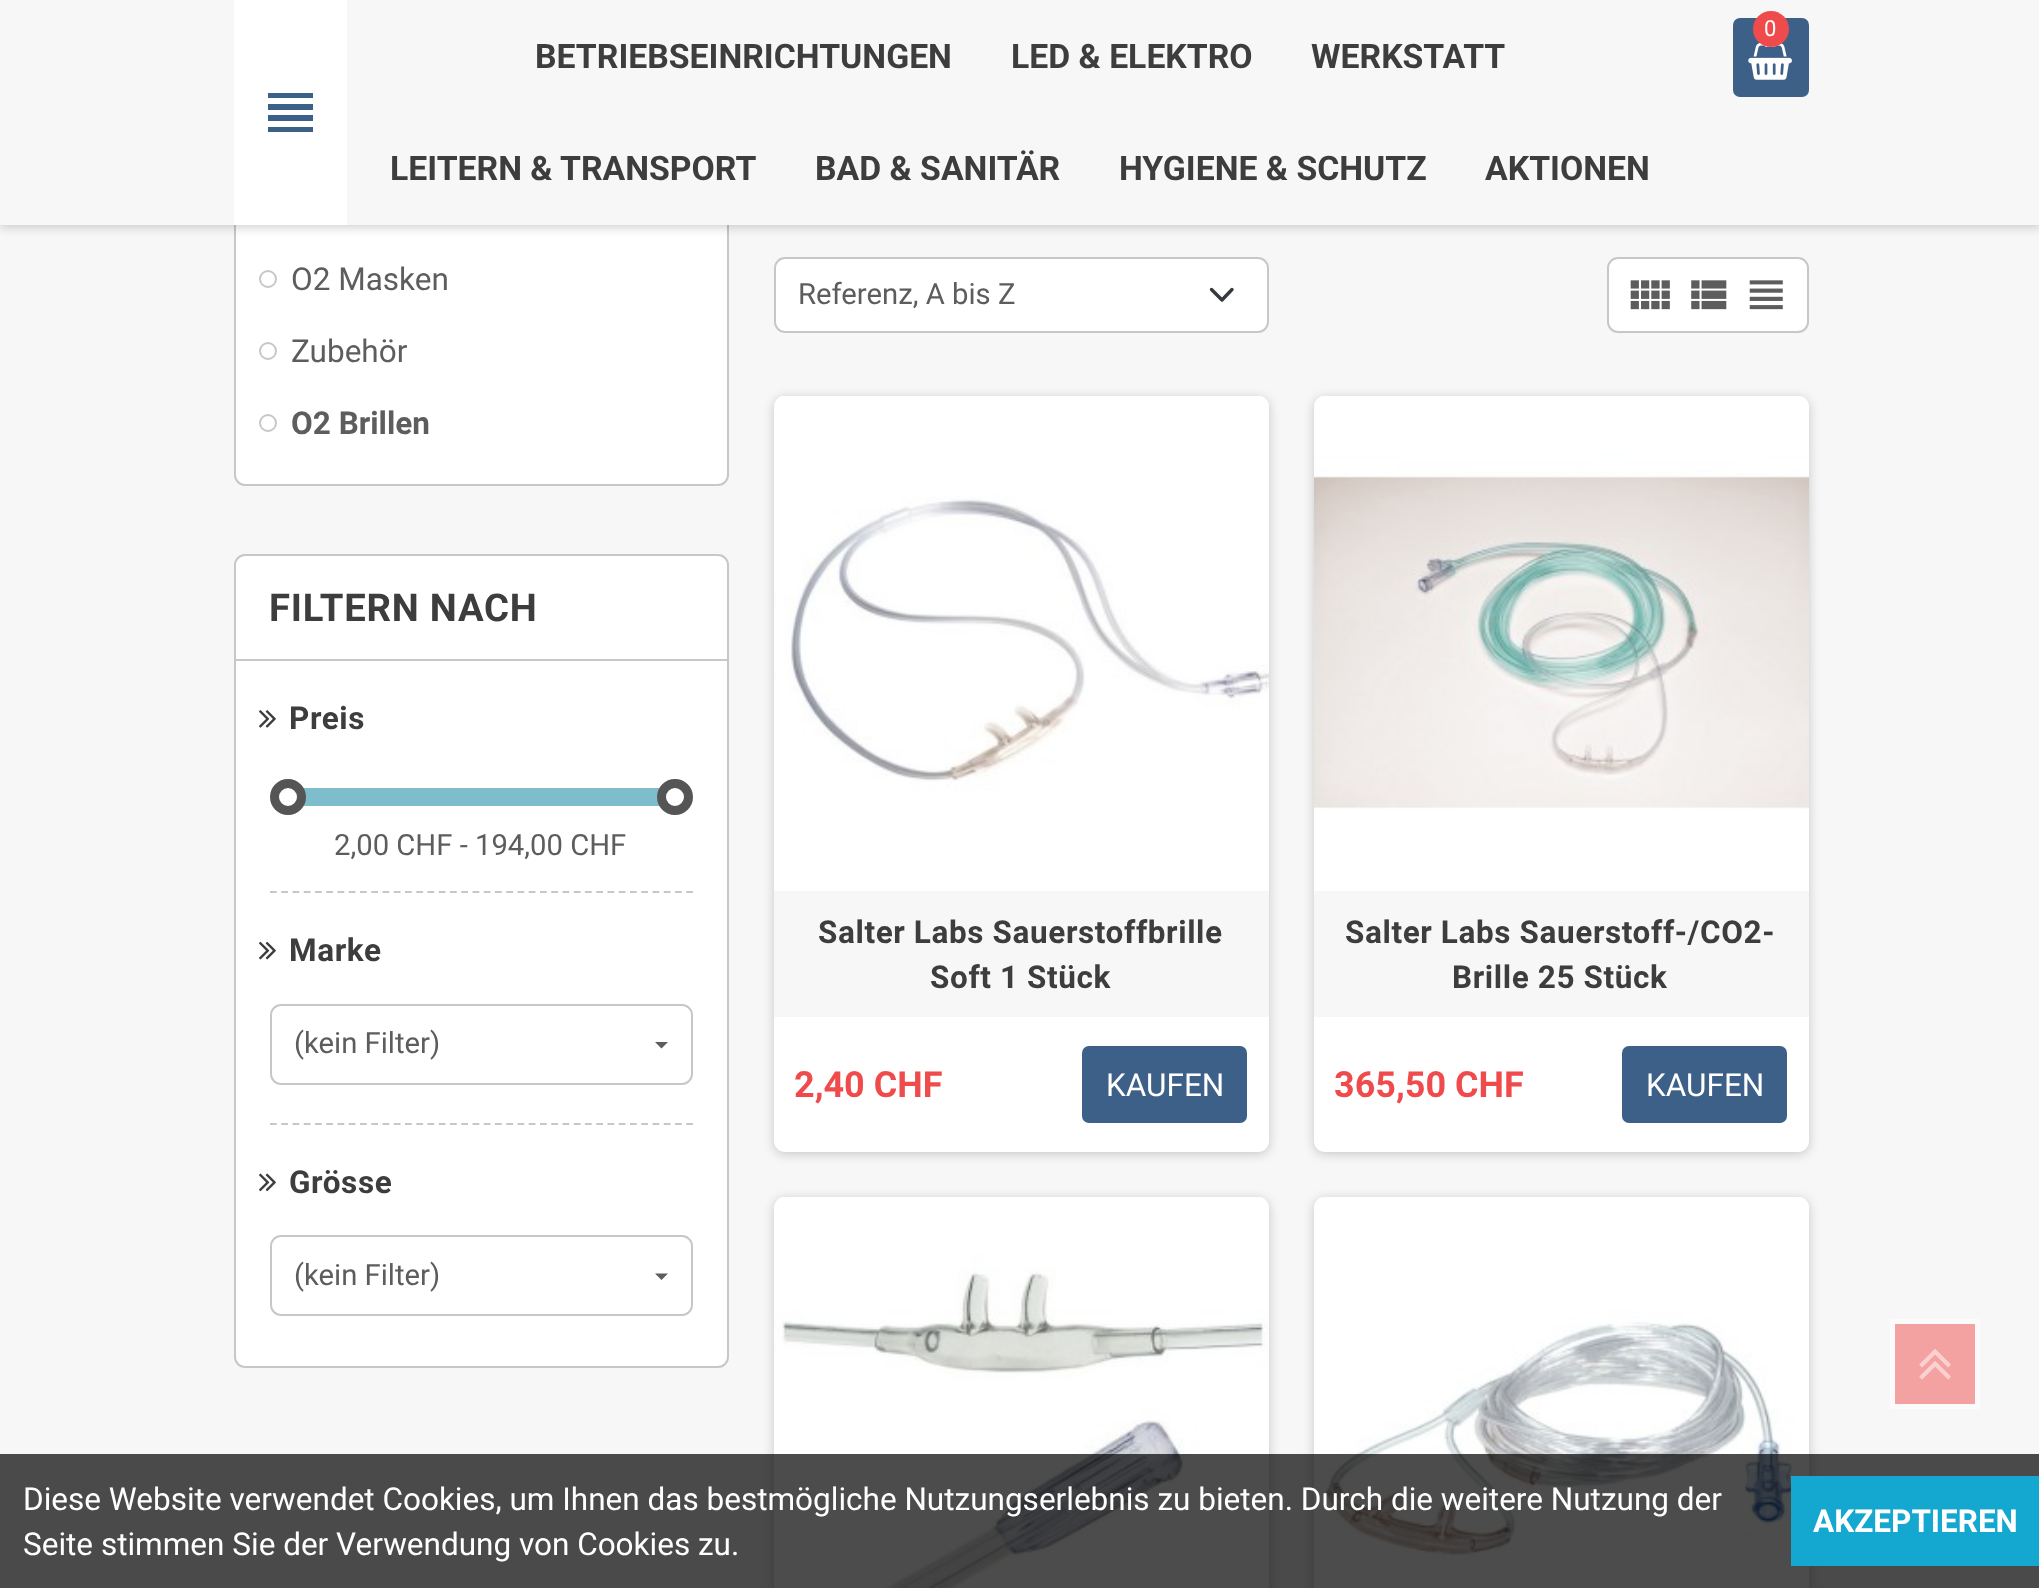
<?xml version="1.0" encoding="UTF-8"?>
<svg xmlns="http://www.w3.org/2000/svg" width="2039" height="1588">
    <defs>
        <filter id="blur1" x="-50%" y="-200%" width="200%" height="500%"><feGaussianBlur stdDeviation="5.5"/></filter>
    </defs>
    <rect width="100%" height="100%" fill="#F7F7F7"/>
    <rect x="235" y="116" width="493" height="369" rx="10" fill="#FFFFFF" stroke="#C7C7C7" stroke-width="2"/>
    <rect x="0" y="2" width="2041" height="225" fill="#000000" fill-opacity="0.2" filter="url(#blur1)"/>
    <rect x="0" y="0" width="2039" height="225" fill="#F7F7F7"/>
    <rect x="234" y="0" width="113" height="225" fill="#FFFFFF"/>
    <path d="M 268 93 H 313 V 98 H 268 Z M 268 110 V 104 H 313 V 110 Z M 268 132 V 127 H 313 V 132 Z M 268 121 V 115 H 313 V 121 Z" fill="#3D6089"/>
    <rect x="1733" y="18" width="76" height="79" rx="7" fill="#3D6089"/>
    <image x="1748" y="43" width="44" height="37" href="img_01.png"/>
    <circle cx="1771" cy="29" r="18" fill="#F04B4C"/>
    <text x="1764" y="36" font-family="Roboto" font-size="22" fill="#FFFFFF">0</text>
    <text x="535" y="68" font-family="Roboto" font-size="33.75" font-weight="700" fill="#3D3D3D">BETRIEBSEINRICHTUNGEN</text>
    <text x="1011" y="68" font-family="Roboto" font-size="33.75" font-weight="700" fill="#3D3D3D">LED &amp; ELEKTRO</text>
    <text x="1311" y="68" font-family="Roboto" font-size="33.75" font-weight="700" fill="#3D3D3D">WERKSTATT</text>
    <text x="390" y="180" font-family="Roboto" font-size="33.75" font-weight="700" fill="#3D3D3D">LEITERN &amp; TRANSPORT</text>
    <text x="815" y="180" font-family="Roboto" font-size="33.75" font-weight="700" fill="#3D3D3D">BAD &amp; SANITÄR</text>
    <text x="1119" y="180" font-family="Roboto" font-size="33.75" font-weight="700" fill="#3D3D3D">HYGIENE &amp; SCHUTZ</text>
    <text x="1485" y="180" font-family="Roboto" font-size="33.75" font-weight="700" fill="#3D3D3D">AKTIONEN</text>
    <circle cx="268" cy="279" r="8" fill="none" stroke="#C7C7C7" stroke-width="2"/>
    <text x="291" y="290" font-family="Roboto" font-size="31.5" fill="#5D5D5D">O2 Masken</text>
    <circle cx="268" cy="351" r="8" fill="none" stroke="#C7C7C7" stroke-width="2"/>
    <text x="291" y="362" font-family="Roboto" font-size="31.5" fill="#5D5D5D">Zubehör</text>
    <circle cx="268" cy="423" r="8" fill="none" stroke="#C7C7C7" stroke-width="2"/>
    <text x="291" y="434" font-family="'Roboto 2'" font-size="31.5" font-weight="700" fill="#5D5D5D">O2 Brillen</text>
    <rect x="235" y="555" width="493" height="812" rx="10" fill="#FFFFFF" stroke="#C7C7C7" stroke-width="2"/>
    <rect x="236" y="659" width="491" height="2" fill="#C7C7C7"/>
    <text x="269" y="621" font-family="Roboto" font-size="38.25" font-weight="700" letter-spacing="0.75" fill="#3D3D3D">FILTERN NACH</text>
    <image x="259" y="710" width="17" height="18" href="img_02.png"/>
    <text x="289" y="729" font-family="Roboto" font-size="31.5" font-weight="700" letter-spacing="0.6" fill="#3D3D3D">Preis</text>
    <rect x="303" y="788" width="357" height="18" fill="#7EBDCB"/>
    <circle cx="288" cy="797" r="13.5" fill="#FFFFFF" stroke="#555555" stroke-width="9"/>
    <circle cx="675" cy="797" r="13.5" fill="#FFFFFF" stroke="#555555" stroke-width="9"/>
    <text x="334" y="855" font-family="Roboto" font-size="29.25" fill="#5D5D5D">2,00 CHF - 194,00 CHF</text>
    <path d="M 270 892 H 693" fill="none" stroke="#C7C7C7" stroke-width="2.2" stroke-dasharray="6.75 4.5"/>
    <image x="259" y="941" width="17" height="19" href="img_03.png"/>
    <text x="289" y="961" font-family="Roboto" font-size="31.5" font-weight="700" letter-spacing="0.6" fill="#3D3D3D">Marke</text>
    <rect x="271" y="1005" width="421" height="79" rx="10" fill="none" stroke="#C7C7C7" stroke-width="2"/>
    <text x="294" y="1053" font-family="Roboto" font-size="29.25" fill="#5D5D5D">(kein Filter)</text>
    <path d="M 655 1042 H 668 L 661.5 1048.5 Z" fill="#5D5D5D"/>
    <path d="M 270 1124 H 693" fill="none" stroke="#C7C7C7" stroke-width="2.2" stroke-dasharray="6.75 4.5"/>
    <image x="259" y="1173" width="17" height="19" href="img_04.png"/>
    <text x="289" y="1193" font-family="Roboto" font-size="31.5" font-weight="700" letter-spacing="0.6" fill="#3D3D3D">Grösse</text>
    <rect x="271" y="1236" width="421" height="79" rx="10" fill="none" stroke="#C7C7C7" stroke-width="2"/>
    <text x="294" y="1285" font-family="Roboto" font-size="29.25" fill="#5D5D5D">(kein Filter)</text>
    <path d="M 655 1273.5 H 668 L 661.5 1280 Z" fill="#5D5D5D"/>
    <rect x="774" y="257" width="495" height="76" rx="11" fill="#FFFFFF"/>
    <path d="M 1211.5 289.5 L 1222 300 L 1232 289.5" fill="none" stroke="#343A40" stroke-width="3.4" stroke-linecap="round" stroke-linejoin="round"/>
    <rect x="775" y="258" width="493" height="74" rx="10" fill="none" stroke="#C7C7C7" stroke-width="2"/>
    <text x="798" y="304" font-family="Roboto" font-size="29.25" fill="#5D5D5D">Referenz, A bis Z</text>
    <rect x="1608" y="258" width="200" height="74" rx="10" fill="#FFFFFF" stroke="#C7C7C7" stroke-width="2"/>
    <image x="1630" y="280" width="40" height="30" href="img_05.png"/>
    <image x="1691" y="280" width="36" height="30" href="img_06.png"/>
    <image x="1749" y="280" width="34" height="30" href="img_07.png"/>
    <rect x="774" y="398" width="495" height="756" rx="11" fill="#000000" fill-opacity="0.2" filter="url(#blur1)"/>
    <rect x="774" y="396" width="495" height="756" rx="11" fill="#FFFFFF"/>
    <image x="774" y="396" width="495" height="395" href="img_08.png"/>
    <rect x="774" y="891" width="495" height="126" fill="#F7F7F7"/>
    <text x="818" y="943" font-family="'Roboto 2'" font-size="31.5" font-weight="700" letter-spacing="0.6" fill="#3D3D3D">Salter Labs Sauerstoffbrille</text>
    <text x="930" y="988" font-family="'Roboto 2'" font-size="31.5" font-weight="700" letter-spacing="0.6" fill="#3D3D3D">Soft 1 Stück</text>
    <text x="794" y="1097" font-family="'Roboto 2'" font-size="36" font-weight="700" fill="#F04B4C">2,40 CHF</text>
    <rect x="1082" y="1046" width="165" height="77" rx="7" fill="#3D6089"/>
    <text x="1106" y="1096" font-family="Roboto" font-size="31.5" fill="#FFFFFF">KAUFEN</text>
    <rect x="1314" y="398" width="495" height="756" rx="11" fill="#000000" fill-opacity="0.2" filter="url(#blur1)"/>
    <rect x="1314" y="396" width="495" height="756" rx="11" fill="#FFFFFF"/>
    <image x="1314" y="396" width="495" height="413" href="img_09.png"/>
    <rect x="1314" y="891" width="495" height="126" fill="#F7F7F7"/>
    <text x="1345" y="943" font-family="'Roboto 2'" font-size="31.5" font-weight="700" letter-spacing="0.6" fill="#3D3D3D">Salter Labs Sauerstoff-/CO2-</text>
    <text x="1452" y="988" font-family="'Roboto 2'" font-size="31.5" font-weight="700" letter-spacing="0.6" fill="#3D3D3D">Brille 25 Stück</text>
    <text x="1334" y="1097" font-family="'Roboto 2'" font-size="36" font-weight="700" fill="#F04B4C">365,50 CHF</text>
    <rect x="1622" y="1046" width="165" height="77" rx="7" fill="#3D6089"/>
    <text x="1646" y="1096" font-family="Roboto" font-size="31.5" fill="#FFFFFF">KAUFEN</text>
    <rect x="774" y="1199" width="495" height="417" rx="11" fill="#000000" fill-opacity="0.2" filter="url(#blur1)"/>
    <image x="774" y="1197" width="495" height="391" href="img_10.png"/>
    <rect x="1314" y="1199" width="495" height="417" rx="11" fill="#000000" fill-opacity="0.2" filter="url(#blur1)"/>
    <rect x="1314" y="1197" width="495" height="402" rx="11" fill="#FFFFFF"/>
    <image x="1314" y="1197" width="495" height="364" href="img_11.png"/>
    <rect x="1892.5" y="1321.5" width="85" height="85" fill="#F4A1A2" stroke="#FBFBFB" stroke-width="5"/>
    <image x="1919" y="1349" width="32" height="31" href="img_12.png"/>
    <rect x="0" y="1454" width="2039" height="134" fill="#000000" fill-opacity="0.7"/>
    <text font-family="Roboto" font-size="31.5" fill="#FFFFFF">
        <tspan x="23" y="1510">Diese Website verwendet Cookies, um Ihnen das bestmögliche Nutzungserlebnis zu bieten. Durch die weitere Nutzung der</tspan>
        <tspan x="23" y="1555">Seite stimmen Sie der Verwendung von Cookies zu.</tspan>
    </text>
    <rect x="1791" y="1476" width="248" height="90" fill="#14A7D0"/>
    <text x="1813" y="1532" font-family="'Roboto 2'" font-size="31.5" font-weight="700" fill="#FFFFFF">AKZEPTIEREN</text>
</svg>
